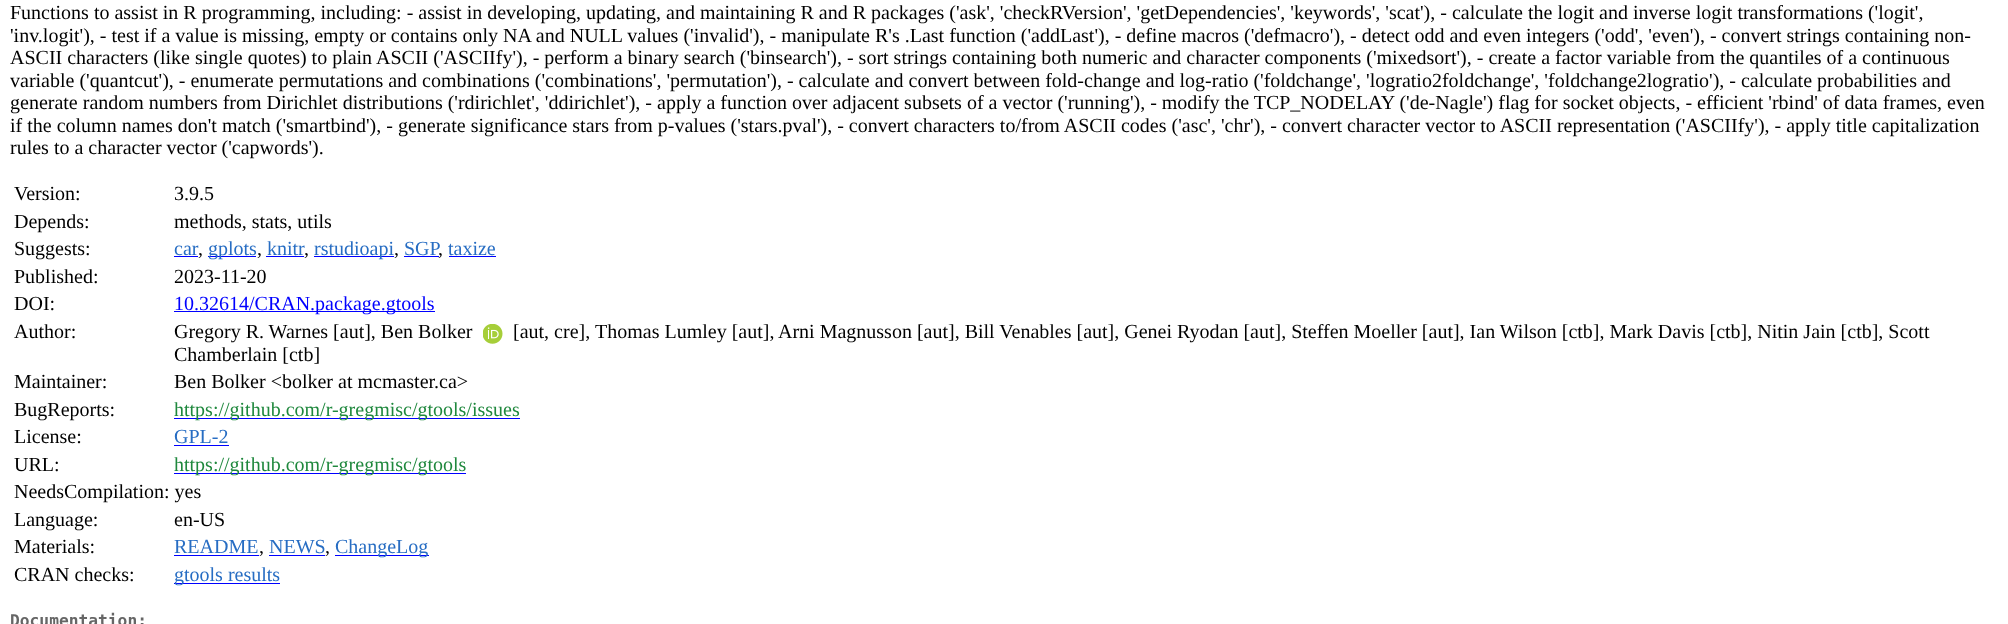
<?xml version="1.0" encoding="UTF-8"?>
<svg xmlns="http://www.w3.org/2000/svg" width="2008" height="624">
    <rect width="100%" height="100%" fill="#FFFFFF"/>
    <text font-family="Liberation Serif" font-size="20" fill="#000000">
        <tspan x="10" y="19">Functions to assist in R programming, including: - assist in developing, updating, and maintaining R and R packages ('ask', 'checkRVersion', 'getDependencies', 'keywords', 'scat'), - calculate the logit and inverse logit transformations ('logit',</tspan>
        <tspan x="10" y="42">'inv.logit'), - test if a value is missing, empty or contains only NA and NULL values ('invalid'), - manipulate R's .Last function ('addLast'), - define macros ('defmacro'), - detect odd and even integers ('odd', 'even'), - convert strings containing non-</tspan>
        <tspan x="10" y="64">ASCII characters (like single quotes) to plain ASCII ('ASCIIfy'), - perform a binary search ('binsearch'), - sort strings containing both numeric and character components ('mixedsort'), - create a factor variable from the quantiles of a continuous</tspan>
        <tspan x="10" y="87">variable ('quantcut'), - enumerate permutations and combinations ('combinations', 'permutation'), - calculate and convert between fold-change and log-ratio ('foldchange', 'logratio2foldchange', 'foldchange2logratio'), - calculate probabilities and</tspan>
        <tspan x="10" y="109">generate random numbers from Dirichlet distributions ('rdirichlet', 'ddirichlet'), - apply a function over adjacent subsets of a vector ('running'), - modify the TCP_NODELAY ('de-Nagle') flag for socket objects, - efficient 'rbind' of data frames, even</tspan>
        <tspan x="10" y="132">if the column names don't match ('smartbind'), - generate significance stars from p-values ('stars.pval'), - convert characters to/from ASCII codes ('asc', 'chr'), - convert character vector to ASCII representation ('ASCIIfy'), - apply title capitalization</tspan>
        <tspan x="10" y="154">rules to a character vector ('capwords').</tspan>
    </text>
    <text x="14" y="200" font-family="Liberation Serif" font-size="20" fill="#000000">Version:</text>
    <text x="174" y="200" font-family="Liberation Serif" font-size="20" fill="#000000">3.9.5</text>
    <text x="14" y="228" font-family="Liberation Serif" font-size="20" fill="#000000">Depends:</text>
    <text x="174" y="228" font-family="Liberation Serif" font-size="20" fill="#000000">methods, stats, utils</text>
    <text x="14" y="255" font-family="Liberation Serif" font-size="20" fill="#000000">Suggests:</text>
    <text x="174" y="255" font-family="Liberation Serif" font-size="20" fill="#276DC3">car</text>
    <rect x="174" y="256" width="24" height="1" fill="#0000FF"/>
    <text x="198" y="255" font-family="Liberation Serif" font-size="20" fill="#000000">,</text>
    <rect x="208" y="256" width="48" height="1" fill="#0000FF"/>
    <text x="208" y="255" font-family="Liberation Serif" font-size="20" fill="#276DC3">gplots</text>
    <text x="257" y="255" font-family="Liberation Serif" font-size="20" fill="#000000">,</text>
    <text x="267" y="255" font-family="Liberation Serif" font-size="20" fill="#276DC3">knitr</text>
    <rect x="266" y="256" width="38" height="1" fill="#0000FF"/>
    <text x="304" y="255" font-family="Liberation Serif" font-size="20" fill="#000000">,</text>
    <rect x="314" y="256" width="80" height="1" fill="#0000FF"/>
    <text x="314" y="255" font-family="Liberation Serif" font-size="20" fill="#276DC3">rstudioapi</text>
    <text x="394" y="255" font-family="Liberation Serif" font-size="20" fill="#000000">,</text>
    <text x="404" y="255" font-family="Liberation Serif" font-size="20" fill="#276DC3">SGP</text>
    <rect x="404" y="256" width="35" height="1" fill="#0000FF"/>
    <text x="438" y="255" font-family="Liberation Serif" font-size="20" fill="#000000">,</text>
    <text x="448" y="255" font-family="Liberation Serif" font-size="20" fill="#276DC3">taxize</text>
    <rect x="449" y="256" width="47" height="1" fill="#0000FF"/>
    <text x="14" y="283" font-family="Liberation Serif" font-size="20" fill="#000000">Published:</text>
    <text x="174" y="283" font-family="Liberation Serif" font-size="20" fill="#000000">2023-11-20</text>
    <text x="14" y="310" font-family="Liberation Serif" font-size="20" fill="#000000">DOI:</text>
    <rect x="174" y="311" width="261" height="1" fill="#0000FF"/>
    <text x="174" y="310" font-family="Liberation Serif" font-size="20" fill="#0000FF">10.32614/CRAN.package.gtools</text>
    <text x="14" y="338" font-family="Liberation Serif" font-size="20" fill="#000000">Author:</text>
    <text x="174" y="338" font-family="Liberation Serif" font-size="20" fill="#000000">Gregory R. Warnes [aut], Ben Bolker</text>
    <image x="483" y="324" width="20" height="20" href="img_01.png"/>
    <text x="513" y="338" font-family="Liberation Serif" font-size="20" fill="#000000">[aut, cre],</text>
    <text x="595" y="338" font-family="Liberation Serif" font-size="20" fill="#000000">Thomas Lumley [aut],</text>
    <text x="778" y="338" font-family="Liberation Serif" font-size="20" fill="#000000">Arni Magnusson [aut], Bill Venables [aut], Genei Ryodan [aut], Steffen Moeller [aut], Ian Wilson [ctb], Mark Davis [ctb], Nitin Jain [ctb], Scott</text>
    <text x="174" y="361" font-family="Liberation Serif" font-size="20" fill="#000000">Chamberlain [ctb]</text>
    <text x="14" y="388" font-family="Liberation Serif" font-size="20" fill="#000000">Maintainer:</text>
    <text x="174" y="388" font-family="Liberation Serif" font-size="20" fill="#000000">Ben Bolker &lt;bolker at mcmaster.ca&gt;</text>
    <text x="14" y="416" font-family="Liberation Serif" font-size="20" fill="#000000">BugReports:</text>
    <rect x="174" y="418" width="346" height="1" fill="#0000FF"/>
    <text x="174" y="416" font-family="Liberation Serif" font-size="20" fill="#1F883D">https://github.com/r-gregmisc/gtools/issues</text>
    <text x="14" y="443" font-family="Liberation Serif" font-size="20" fill="#000000">License:</text>
    <text x="174" y="443" font-family="Liberation Serif" font-size="20" fill="#276DC3">GPL-2</text>
    <rect x="174" y="445" width="55" height="1" fill="#0000FF"/>
    <text x="14" y="471" font-family="Liberation Serif" font-size="20" fill="#000000">URL:</text>
    <rect x="174" y="473" width="292" height="1" fill="#0000FF"/>
    <text x="174" y="471" font-family="Liberation Serif" font-size="20" fill="#1F883D">https://github.com/r-gregmisc/gtools</text>
    <text font-family="Liberation Serif" font-size="20" fill="#000000">
        <tspan x="14" y="498">NeedsCompilation: yes</tspan>
        <tspan x="14" y="526">Language:</tspan>
    </text>
    <text x="174" y="526" font-family="Liberation Serif" font-size="20" fill="#000000">en-US</text>
    <text x="14" y="553" font-family="Liberation Serif" font-size="20" fill="#000000">Materials:</text>
    <text x="174" y="553" font-family="Liberation Serif" font-size="20" fill="#276DC3">README</text>
    <rect x="174" y="555" width="85" height="1" fill="#0000FF"/>
    <text x="259" y="553" font-family="Liberation Serif" font-size="20" fill="#000000">,</text>
    <text x="269" y="553" font-family="Liberation Serif" font-size="20" fill="#276DC3">NEWS</text>
    <rect x="269" y="555" width="56" height="1" fill="#0000FF"/>
    <text x="325" y="553" font-family="Liberation Serif" font-size="20" fill="#000000">,</text>
    <rect x="335" y="555" width="94" height="1" fill="#0000FF"/>
    <text x="335" y="553" font-family="Liberation Serif" font-size="20" fill="#276DC3">ChangeLog</text>
    <text x="14" y="581" font-family="Liberation Serif" font-size="20" fill="#000000">CRAN checks:</text>
    <rect x="174" y="583" width="106" height="1" fill="#0000FF"/>
    <text x="174" y="581" font-family="Liberation Serif" font-size="20" fill="#276DC3">gtools results</text>
    <text x="10" y="626" font-family="DejaVu Sans Mono" font-size="16.25" font-weight="700" fill="#666666">Documentation:</text>
</svg>
